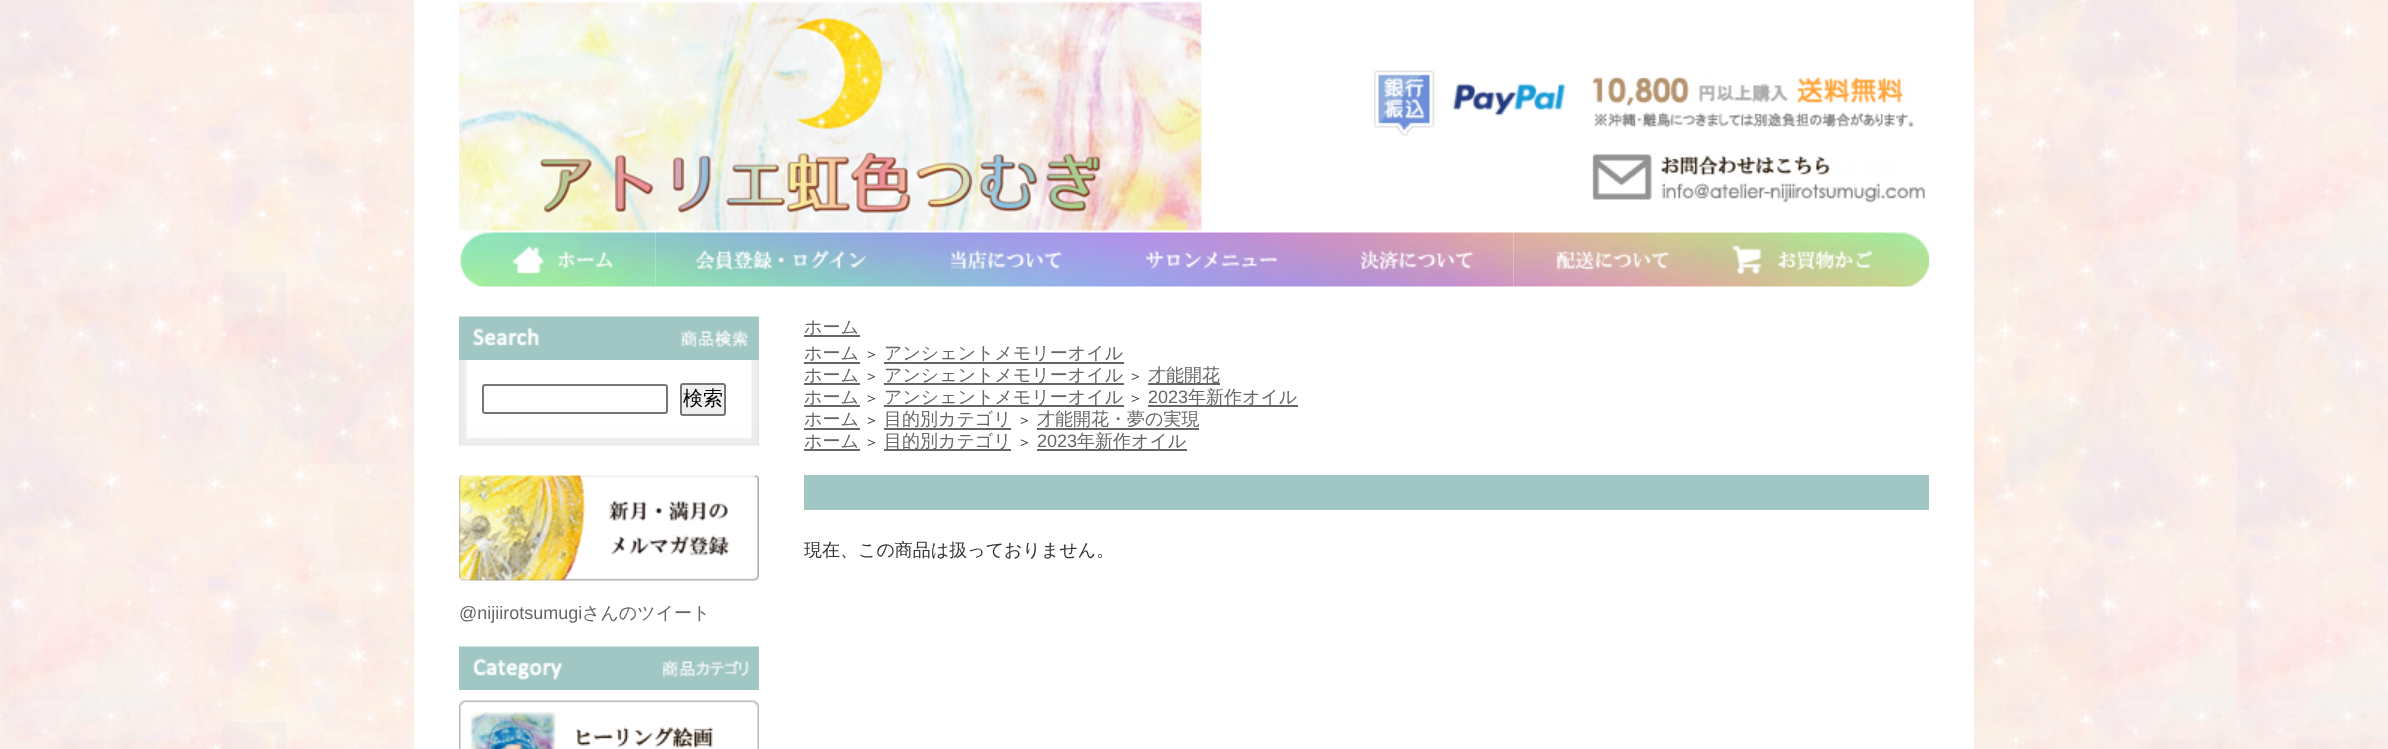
<?xml version="1.0" encoding="UTF-8"?>
<svg xmlns="http://www.w3.org/2000/svg" width="2388" height="749">
    <rect width="100%" height="100%" fill="#FFFFFF"/>
    <image x="0" y="0" width="2388" height="749" href="img_01.png"/>
    <rect x="414" y="0" width="1560" height="749" fill="#FFFFFF"/>
    <image x="459" y="1" width="743" height="231" href="img_02.png"/>
    <image x="1374" y="70" width="540" height="67" href="img_03.png"/>
    <image x="1592" y="154" width="333" height="49" href="img_04.png"/>
    <image x="460" y="232" width="196" height="55" href="img_05.png"/>
    <image x="655" y="232" width="254" height="55" href="img_06.png"/>
    <image x="909" y="232" width="192" height="55" href="img_07.png"/>
    <image x="1101" y="232" width="219" height="55" href="img_08.png"/>
    <image x="1320" y="232" width="194" height="55" href="img_09.png"/>
    <image x="1513" y="232" width="188" height="55" href="img_10.png"/>
    <image x="1701" y="232" width="228" height="55" href="img_11.png"/>
    <image x="459" y="316" width="300" height="44" href="img_12.png"/>
    <image x="459" y="360" width="300" height="86" href="img_13.png"/>
    <rect x="483" y="385" width="184" height="28" rx="2" fill="none" stroke="#767676" stroke-width="2"/>
    <rect x="681" y="384" width="44" height="31" rx="2" fill="#EFEFEF" stroke="#767676" stroke-width="2"/>
    <text x="683" y="405" font-family="WenQuanYi Zen Hei" font-size="20" font-weight="500" fill="#000000">検索</text>
    <image x="459" y="475" width="300" height="106" href="img_14.png"/>
    <text x="459" y="619" font-family="Liberation Sans" font-size="18" fill="#666666">@nijiirotsumugi</text>
    <text x="582" y="619" font-family="WenQuanYi Zen Hei" font-size="18" font-weight="500" fill="#666666">さんのツイート</text>
    <image x="459" y="646" width="300" height="44" href="img_15.png"/>
    <image x="459" y="700" width="300" height="49" href="img_16.png"/>
    <text x="804" y="333" font-family="WenQuanYi Zen Hei" font-size="18" font-weight="500" fill="#666666">ホーム</text>
    <rect x="804" y="335" width="56" height="2" fill="#666666"/>
    <text x="804" y="359" font-family="WenQuanYi Zen Hei" font-size="18" font-weight="500" fill="#666666">ホーム</text>
    <rect x="804" y="362" width="56" height="2" fill="#666666"/>
    <text x="864" y="359" font-family="WenQuanYi Zen Hei" font-size="15" font-weight="500" fill="#333333">＞</text>
    <text x="884" y="359" font-family="WenQuanYi Zen Hei" font-size="18" font-weight="500" fill="#666666">アンシェントメモリーオイル</text>
    <rect x="884" y="362" width="240" height="2" fill="#666666"/>
    <text x="804" y="381" font-family="WenQuanYi Zen Hei" font-size="18" font-weight="500" fill="#666666">ホーム</text>
    <rect x="804" y="383" width="56" height="2" fill="#666666"/>
    <text x="864" y="381" font-family="WenQuanYi Zen Hei" font-size="15" font-weight="500" fill="#333333">＞</text>
    <rect x="884" y="383" width="240" height="2" fill="#666666"/>
    <text x="884" y="381" font-family="WenQuanYi Zen Hei" font-size="18" font-weight="500" fill="#666666">アンシェントメモリーオイル</text>
    <text x="1128" y="381" font-family="WenQuanYi Zen Hei" font-size="15" font-weight="500" fill="#333333">＞</text>
    <rect x="1148" y="383" width="72" height="2" fill="#666666"/>
    <text x="1148" y="381" font-family="WenQuanYi Zen Hei" font-size="18" font-weight="500" fill="#666666">才能開花</text>
    <text x="804" y="403" font-family="WenQuanYi Zen Hei" font-size="18" font-weight="500" fill="#666666">ホーム</text>
    <rect x="804" y="405" width="56" height="2" fill="#666666"/>
    <text x="864" y="403" font-family="WenQuanYi Zen Hei" font-size="15" font-weight="500" fill="#333333">＞</text>
    <rect x="884" y="405" width="240" height="2" fill="#666666"/>
    <text x="884" y="403" font-family="WenQuanYi Zen Hei" font-size="18" font-weight="500" fill="#666666">アンシェントメモリーオイル</text>
    <text x="1128" y="403" font-family="WenQuanYi Zen Hei" font-size="15" font-weight="500" fill="#333333">＞</text>
    <text x="1148" y="403" font-family="Liberation Sans" font-size="18" fill="#666666">2023</text>
    <rect x="1148" y="405" width="150" height="2" fill="#666666"/>
    <text x="1188" y="403" font-family="WenQuanYi Zen Hei" font-size="18" font-weight="500" fill="#666666">年新作オイル</text>
    <text x="804" y="425" font-family="WenQuanYi Zen Hei" font-size="18" font-weight="500" fill="#666666">ホーム</text>
    <rect x="804" y="428" width="56" height="2" fill="#666666"/>
    <text x="864" y="425" font-family="WenQuanYi Zen Hei" font-size="15" font-weight="500" fill="#333333">＞</text>
    <text x="884" y="425" font-family="WenQuanYi Zen Hei" font-size="18" font-weight="500" fill="#666666">目的別カテゴリ</text>
    <rect x="884" y="428" width="127" height="2" fill="#666666"/>
    <text x="1017" y="425" font-family="WenQuanYi Zen Hei" font-size="15" font-weight="500" fill="#333333">＞</text>
    <text x="1037" y="425" font-family="WenQuanYi Zen Hei" font-size="18" font-weight="500" fill="#666666">才能開花・夢の実現</text>
    <rect x="1037" y="428" width="162" height="2" fill="#666666"/>
    <text x="804" y="447" font-family="WenQuanYi Zen Hei" font-size="18" font-weight="500" fill="#666666">ホーム</text>
    <rect x="804" y="449" width="56" height="2" fill="#666666"/>
    <text x="864" y="447" font-family="WenQuanYi Zen Hei" font-size="15" font-weight="500" fill="#333333">＞</text>
    <rect x="884" y="449" width="127" height="2" fill="#666666"/>
    <text x="884" y="447" font-family="WenQuanYi Zen Hei" font-size="18" font-weight="500" fill="#666666">目的別カテゴリ</text>
    <text x="1017" y="447" font-family="WenQuanYi Zen Hei" font-size="15" font-weight="500" fill="#333333">＞</text>
    <text x="1037" y="447" font-family="Liberation Sans" font-size="18" fill="#666666">2023</text>
    <rect x="1037" y="449" width="150" height="2" fill="#666666"/>
    <text x="1077" y="447" font-family="WenQuanYi Zen Hei" font-size="18" font-weight="500" fill="#666666">年新作オイル</text>
    <rect x="804" y="475" width="1125" height="35" fill="#A1C7C4"/>
    <text x="804" y="556" font-family="WenQuanYi Zen Hei" font-size="18" font-weight="500" fill="#333333">現在、この商品は扱っておりません。</text>
</svg>
